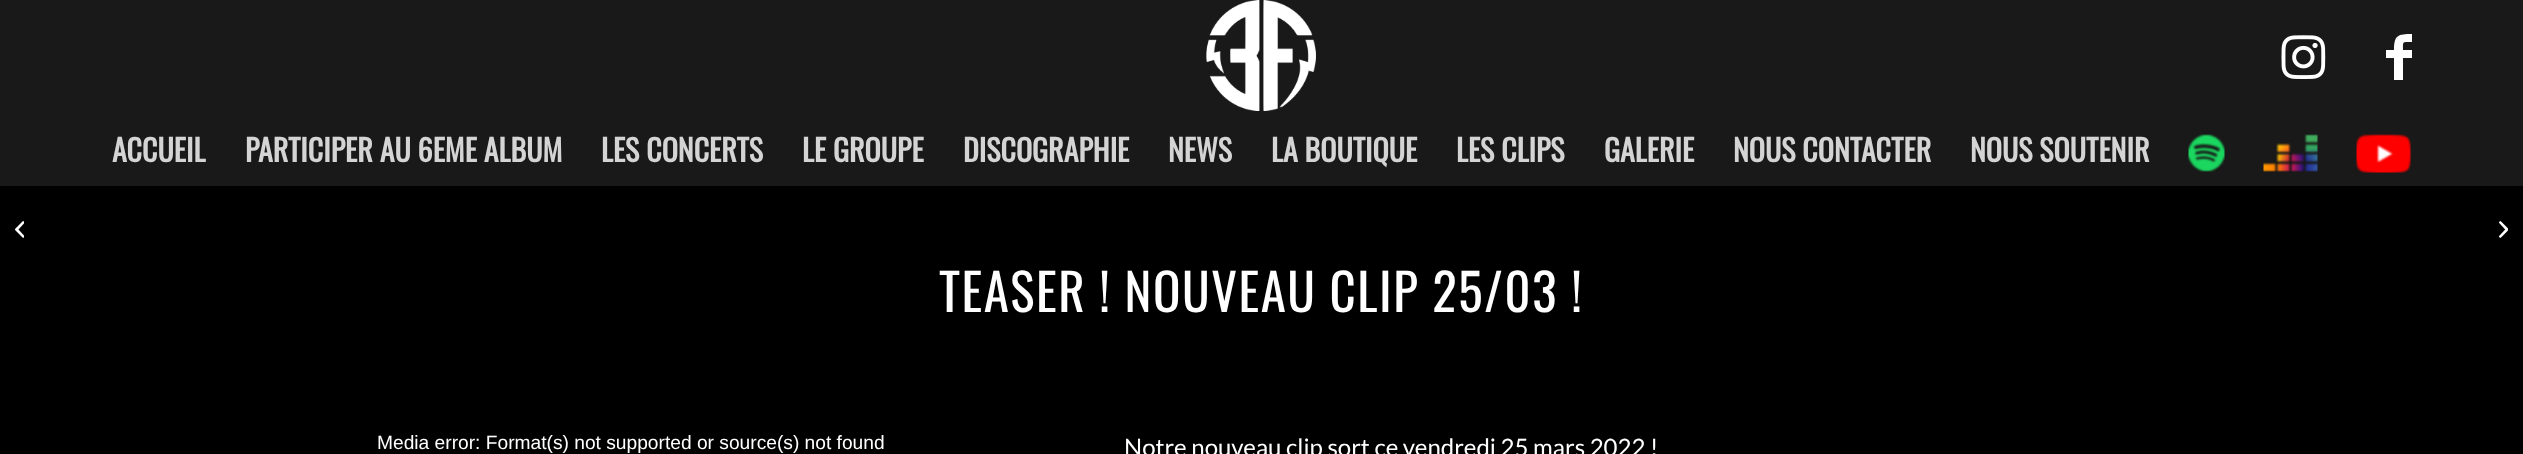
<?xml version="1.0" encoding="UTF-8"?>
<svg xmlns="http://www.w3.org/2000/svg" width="2523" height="454">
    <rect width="100%" height="100%" fill="#191919"/>
    <image x="1206" y="0" width="110" height="111" href="img_01.png"/>
    <image x="2281" y="35" width="45" height="44" href="img_02.png"/>
    <path d="M 2412 42 C 2402 42 2403 41 2403 50 H 2412 V 58 H 2403 V 80 H 2394 V 58 H 2386 V 50 H 2394 C 2394 35 2398 34 2412 34 Z" fill="#FFFFFF"/>
    <text x="112" y="162" font-family="Oswald" font-size="30" font-weight="700" fill="#D4D4D4">ACCUEIL</text>
    <text x="245" y="162" font-family="Oswald" font-size="30" font-weight="700" fill="#D4D4D4">PARTICIPER AU 6EME ALBUM</text>
    <text x="601" y="162" font-family="Oswald" font-size="30" font-weight="700" fill="#D4D4D4">LES CONCERTS</text>
    <text x="802" y="162" font-family="Oswald" font-size="30" font-weight="700" fill="#D4D4D4">LE GROUPE</text>
    <text x="963" y="162" font-family="Oswald" font-size="30" font-weight="700" fill="#D4D4D4">DISCOGRAPHIE</text>
    <text x="1168" y="162" font-family="Oswald" font-size="30" font-weight="700" fill="#D4D4D4">NEWS</text>
    <text x="1271" y="162" font-family="Oswald" font-size="30" font-weight="700" fill="#D4D4D4">LA BOUTIQUE</text>
    <text x="1456" y="162" font-family="Oswald" font-size="30" font-weight="700" fill="#D4D4D4">LES CLIPS</text>
    <text x="1604" y="162" font-family="Oswald" font-size="30" font-weight="700" fill="#D4D4D4">GALERIE</text>
    <text x="1733" y="162" font-family="Oswald" font-size="30" font-weight="700" fill="#D4D4D4">NOUS CONTACTER</text>
    <text x="1970" y="162" font-family="Oswald" font-size="30" font-weight="700" fill="#D4D4D4">NOUS SOUTENIR</text>
    <image x="2188" y="134" width="37" height="38" href="img_03.png"/>
    <image x="2263" y="134" width="55" height="38" href="img_04.png"/>
    <image x="2356" y="134" width="55" height="39" href="img_05.png"/>
    <rect x="0" y="186" width="2523" height="268" fill="#000000"/>
    <image x="15" y="221" width="9" height="17" href="img_06.png"/>
    <image x="2499" y="221" width="9" height="17" href="img_07.png"/>
    <text x="939" y="312" font-family="Oswald" font-size="51" letter-spacing="1.5" fill="#FFFFFF">TEASER ! NOUVEAU CLIP 25/03 !</text>
    <text x="377" y="449" font-family="Liberation Sans" font-size="19.2" fill="#FFFFFF">Media error: Format(s) not supported or source(s) not found</text>
    <text x="1124" y="456" font-family="Lato" font-size="24" fill="#FFFFFF">Notre nouveau clip sort ce vendredi 25 mars 2022 !</text>
</svg>
